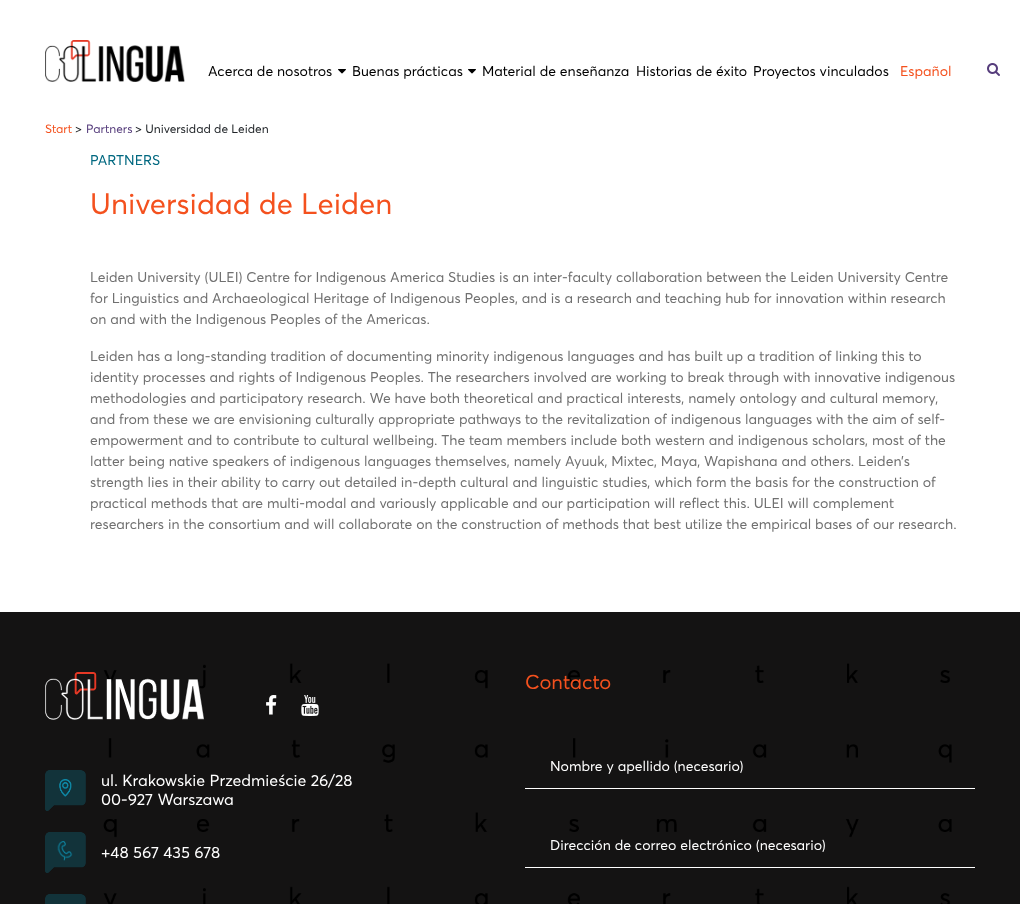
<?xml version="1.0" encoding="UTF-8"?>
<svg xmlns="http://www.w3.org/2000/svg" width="1020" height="904">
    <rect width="100%" height="100%" fill="#FFFFFF"/>
    <image x="45" y="40" width="140" height="42" href="img_01.png"/>
    <text x="208" y="76" font-family="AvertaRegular" font-size="14" fill="#000000">Acerca de nosotros</text>
    <image x="338" y="69" width="8" height="5" href="img_02.png"/>
    <text x="352" y="76" font-family="AvertaRegular" font-size="14" fill="#000000">Buenas prácticas</text>
    <image x="468" y="69" width="8" height="5" href="img_02.png"/>
    <text x="482" y="76" font-family="AvertaRegular" font-size="14" fill="#000000">Material de enseñanza</text>
    <text x="636" y="76" font-family="AvertaRegular" font-size="14" fill="#000000">Historias de éxito</text>
    <text x="753" y="76" font-family="AvertaRegular" font-size="14" fill="#000000">Proyectos vinculados</text>
    <text x="900" y="76" font-family="AvertaRegular" font-size="14" fill="#F4511E">Español</text>
    <image x="987" y="63" width="13" height="13" href="img_03.png"/>
    <text x="45" y="133" font-family="AvertaRegular" font-size="12" fill="#F4511E">Start</text>
    <text x="75" y="133" font-family="AvertaRegular" font-size="12" fill="#212529">&gt;</text>
    <text x="86" y="133" font-family="AvertaRegular" font-size="12" fill="#563D7C">Partners</text>
    <text x="135" y="133" font-family="AvertaRegular" font-size="12" fill="#212529">&gt; Universidad de Leiden</text>
    <text x="90" y="165" font-family="AvertaRegular" font-size="14" fill="#016880">PARTNERS</text>
    <text x="90" y="214" font-family="AvertaRegular" font-size="29.4" fill="#F4511E">Universidad de Leiden</text>
    <text font-family="AvertaRegular" font-size="14" fill="#707070">
        <tspan x="90" y="282">Leiden University (ULEI) Centre for Indigenous America Studies is an inter-faculty collaboration between the Leiden University Centre</tspan>
        <tspan x="90" y="303">for Linguistics and Archaeological Heritage of Indigenous Peoples, and is a research and teaching hub for innovation within research</tspan>
        <tspan x="90" y="324">on and with the Indigenous Peoples of the Americas.</tspan>
    </text>
    <text font-family="AvertaRegular" font-size="14" fill="#707070">
        <tspan x="90" y="361">Leiden has a long-standing tradition of documenting minority indigenous languages and has built up a tradition of linking this to</tspan>
        <tspan x="90" y="382">identity processes and rights of Indigenous Peoples. The researchers involved are working to break through with innovative indigenous</tspan>
        <tspan x="90" y="403">methodologies and participatory research. We have both theoretical and practical interests, namely ontology and cultural memory,</tspan>
        <tspan x="90" y="424">and from these we are envisioning culturally appropriate pathways to the revitalization of indigenous languages with the aim of self-</tspan>
        <tspan x="90" y="445">empowerment and to contribute to cultural wellbeing. The team members include both western and indigenous scholars, most of the</tspan>
        <tspan x="90" y="466">latter being native speakers of indigenous languages themselves, namely Ayuuk, Mixtec, Maya, Wapishana and others. Leiden’s</tspan>
        <tspan x="90" y="487">strength lies in their ability to carry out detailed in-depth cultural and linguistic studies, which form the basis for the construction of</tspan>
        <tspan x="90" y="508">practical methods that are multi-modal and variously applicable and our participation will reflect this. ULEI will complement</tspan>
        <tspan x="90" y="529">researchers in the consortium and will collaborate on the construction of methods that best utilize the empirical bases of our research.</tspan>
    </text>
    <rect x="0" y="612" width="1020" height="292" fill="#141313"/>
    <image x="103" y="663" width="849" height="241" href="img_04.png"/>
    <image x="45" y="672" width="160" height="48" href="img_05.png"/>
    <image x="266" y="695" width="11" height="20" href="img_06.png"/>
    <image x="301" y="695" width="18" height="21" href="img_07.png"/>
    <image x="45" y="770" width="41" height="41" href="img_08.png"/>
    <text font-family="AvertaRegular" font-size="16" fill="#FFFFFF">
        <tspan x="101" y="786">ul. Krakowskie Przedmieście 26/28</tspan>
        <tspan x="101" y="805">00-927 Warszawa</tspan>
    </text>
    <image x="45" y="832" width="41" height="41" href="img_09.png"/>
    <text x="101" y="858" font-family="AvertaRegular" font-size="16" fill="#FFFFFF">+48 567 435 678</text>
    <image x="45" y="894" width="41" height="10" href="img_10.png"/>
    <text x="525" y="689" font-family="AvertaRegular" font-size="20" fill="#F4511E">Contacto</text>
    <rect x="525" y="788" width="450" height="1" fill="#FFFFFF"/>
    <text x="550" y="771" font-family="AvertaRegular" font-size="14" fill="#FFFFFF">Nombre y apellido (necesario)</text>
    <rect x="525" y="867" width="450" height="1" fill="#FFFFFF"/>
    <text x="550" y="850" font-family="AvertaRegular" font-size="14" fill="#FFFFFF">Dirección de correo electrónico (necesario)</text>
</svg>
